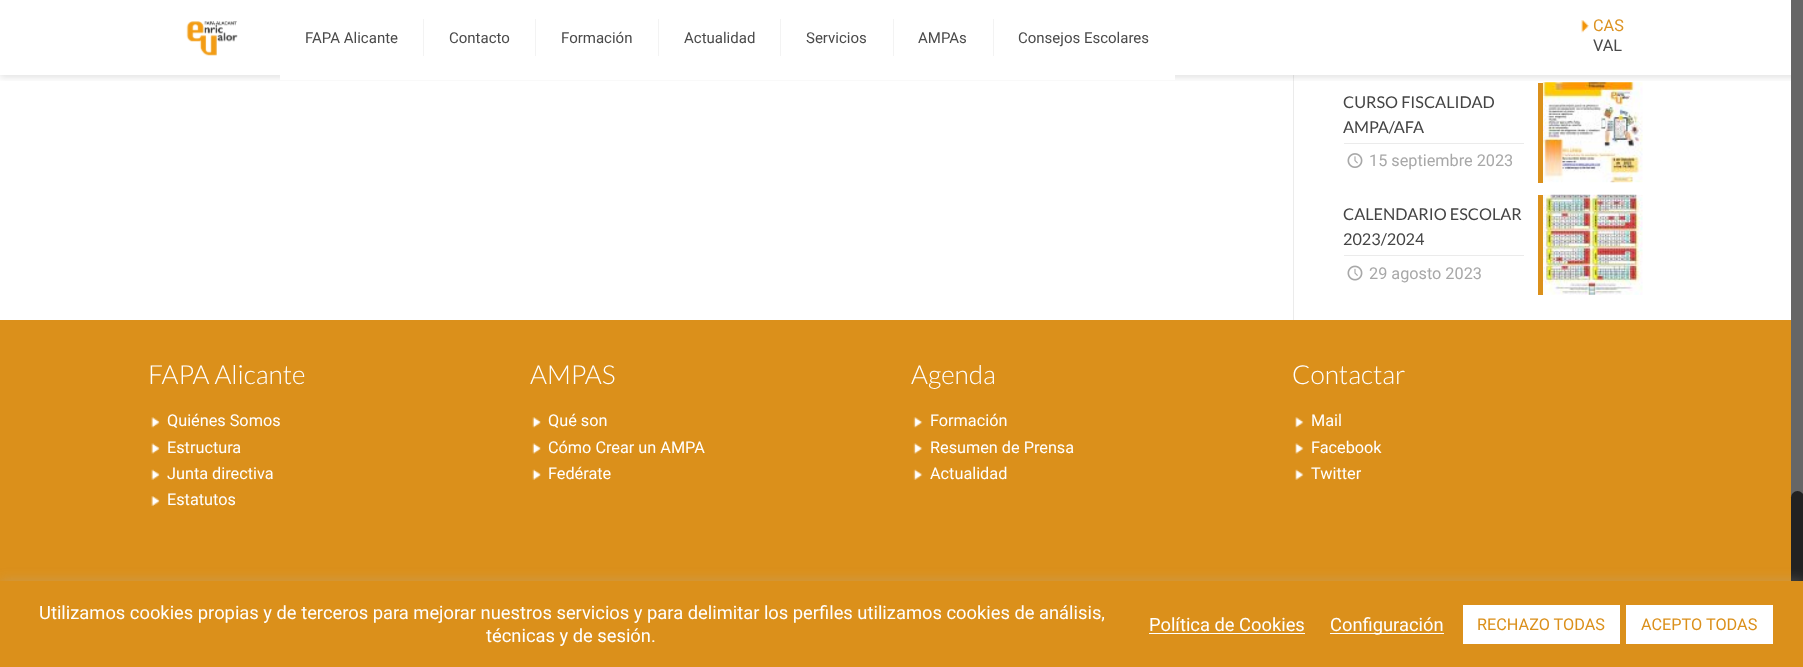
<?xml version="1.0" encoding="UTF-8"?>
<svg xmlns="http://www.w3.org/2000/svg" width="1803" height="667">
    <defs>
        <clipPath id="clip1"><rect x="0" y="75" width="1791" height="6"/></clipPath>
        <filter id="blur1" x="-50%" y="-200%" width="200%" height="500%"><feGaussianBlur stdDeviation="3"/></filter>
        <filter id="blur2" x="-50%" y="-200%" width="200%" height="500%"><feGaussianBlur stdDeviation="6"/></filter>
    </defs>
    <rect width="100%" height="100%" fill="#FFFFFF"/>
    <rect x="1293" y="0" width="1" height="320" fill="#EBEBEB"/>
    <image x="1542" y="82" width="101" height="101" href="img_04.png"/>
    <rect x="1538" y="83" width="5" height="100" fill="#DB901B"/>
    <g clip-path="url(#clip1)">
        <rect x="0" y="3" width="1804" height="75" fill="#000000" fill-opacity="0.1" filter="url(#blur1)"/>
    </g>
    <rect x="1293" y="0" width="1" height="75" fill="#FFFFFF" fill-opacity="0.97"/>
    <image x="186" y="21" width="52" height="35" href="img_01.png"/>
    <rect x="423" y="19" width="1" height="37" fill="#F3F3F3"/>
    <text x="305" y="43" font-family="Roboto" font-size="15" fill="#4A4A4A">FAPA Alicante</text>
    <rect x="280" y="75" width="895" height="5" fill="#FFFFFF"/>
    <rect x="535" y="19" width="1" height="37" fill="#F3F3F3"/>
    <text x="449" y="43" font-family="Roboto" font-size="15" fill="#4A4A4A">Contacto</text>
    <rect x="658" y="19" width="1" height="37" fill="#F3F3F3"/>
    <text x="561" y="43" font-family="Roboto" font-size="15" fill="#4A4A4A">Formación</text>
    <rect x="780" y="19" width="1" height="37" fill="#F3F3F3"/>
    <text x="684" y="43" font-family="Roboto" font-size="15" fill="#4A4A4A">Actualidad</text>
    <rect x="893" y="19" width="1" height="37" fill="#F3F3F3"/>
    <text x="806" y="43" font-family="Roboto" font-size="15" fill="#4A4A4A">Servicios</text>
    <rect x="993" y="19" width="1" height="37" fill="#F3F3F3"/>
    <text x="918" y="43" font-family="Roboto" font-size="15" fill="#4A4A4A">AMPAs</text>
    <text x="1018" y="43" font-family="Roboto" font-size="15" fill="#4A4A4A">Consejos Escolares</text>
    <image x="1581" y="20" width="8" height="13" href="img_02.png"/>
    <text x="1593" y="31" font-family="Roboto" font-size="16.25" fill="#DC9322">CAS</text>
    <text x="1593" y="51" font-family="Roboto" font-size="16.25" fill="#4A4A4A">VAL</text>
    <rect x="1344" y="143" width="180" height="1" fill="#EBEBEB"/>
    <text font-family="Lato" font-size="16.25" fill="#444444">
        <tspan x="1343" y="108">CURSO FISCALIDAD</tspan>
        <tspan x="1343" y="133">AMPA/AFA</tspan>
    </text>
    <image x="1347" y="153" width="16" height="15" href="img_03.png"/>
    <text x="1369" y="166" font-family="Roboto" font-size="16.25" fill="#A8A8A8">15 septiembre 2023</text>
    <rect x="1344" y="255" width="180" height="1" fill="#EBEBEB"/>
    <text font-family="Lato" font-size="16.25" fill="#444444">
        <tspan x="1343" y="220">CALENDARIO ESCOLAR</tspan>
        <tspan x="1343" y="245">2023/2024</tspan>
    </text>
    <image x="1542" y="194" width="101" height="101" href="img_06.png"/>
    <rect x="1538" y="195" width="5" height="100" fill="#DB901B"/>
    <image x="1347" y="265" width="16" height="16" href="img_05.png"/>
    <text x="1369" y="279" font-family="Roboto" font-size="16.25" fill="#A8A8A8">29 agosto 2023</text>
    <rect x="0" y="320" width="1791" height="261" fill="#DB901B"/>
    <text x="148" y="384" font-family="Lato" font-size="26.25" font-weight="300" fill="#FFFFFF">FAPA Alicante</text>
    <image x="151" y="417" width="9" height="11" href="img_07.png"/>
    <text x="167" y="426" font-family="Roboto" font-size="16.25" fill="#FFFFFF">Quiénes Somos</text>
    <image x="151" y="443" width="9" height="11" href="img_08.png"/>
    <text x="167" y="453" font-family="Roboto" font-size="16.25" fill="#FFFFFF">Estructura</text>
    <image x="151" y="469" width="9" height="11" href="img_09.png"/>
    <text x="167" y="479" font-family="Roboto" font-size="16.25" fill="#FFFFFF">Junta directiva</text>
    <image x="151" y="496" width="9" height="10" href="img_10.png"/>
    <text x="167" y="505" font-family="Roboto" font-size="16.25" fill="#FFFFFF">Estatutos</text>
    <text x="530" y="384" font-family="Lato" font-size="26.25" font-weight="300" fill="#FFFFFF">AMPAS</text>
    <image x="532" y="417" width="9" height="11" href="img_11.png"/>
    <text x="548" y="426" font-family="Roboto" font-size="16.25" fill="#FFFFFF">Qué son</text>
    <image x="532" y="443" width="9" height="11" href="img_12.png"/>
    <text x="548" y="453" font-family="Roboto" font-size="16.25" fill="#FFFFFF">Cómo Crear un AMPA</text>
    <image x="532" y="469" width="9" height="11" href="img_13.png"/>
    <text x="548" y="479" font-family="Roboto" font-size="16.25" fill="#FFFFFF">Fedérate</text>
    <text x="911" y="384" font-family="Lato" font-size="26.25" font-weight="300" fill="#FFFFFF">Agenda</text>
    <image x="913" y="417" width="10" height="11" href="img_14.png"/>
    <text x="930" y="426" font-family="Roboto" font-size="16.25" fill="#FFFFFF">Formación</text>
    <image x="913" y="443" width="10" height="11" href="img_15.png"/>
    <text x="930" y="453" font-family="Roboto" font-size="16.25" fill="#FFFFFF">Resumen de Prensa</text>
    <image x="913" y="469" width="10" height="11" href="img_16.png"/>
    <text x="930" y="479" font-family="Roboto" font-size="16.25" fill="#FFFFFF">Actualidad</text>
    <text x="1292" y="384" font-family="Lato" font-size="26.25" font-weight="300" fill="#FFFFFF">Contactar</text>
    <image x="1295" y="417" width="9" height="11" href="img_17.png"/>
    <text x="1311" y="426" font-family="Roboto" font-size="16.25" fill="#FFFFFF">Mail</text>
    <image x="1295" y="443" width="9" height="11" href="img_18.png"/>
    <text x="1311" y="453" font-family="Roboto" font-size="16.25" fill="#FFFFFF">Facebook</text>
    <image x="1295" y="469" width="9" height="11" href="img_19.png"/>
    <text x="1311" y="479" font-family="Roboto" font-size="16.25" fill="#FFFFFF">Twitter</text>
    <rect x="1791" y="0" width="12" height="498" fill="#666666"/>
    <rect x="1791" y="491" width="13" height="132" rx="6.5" fill="#222222"/>
    <rect x="0" y="580" width="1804" height="86" fill="#ACABAB" fill-opacity="0.3" filter="url(#blur2)"/>
    <rect x="0" y="581" width="1803" height="86" fill="#DB901B"/>
    <text x="39" y="619" font-family="Roboto" font-size="18.33" fill="#FFFFFF">Utilizamos cookies propias y de terceros para mejorar nuestros servicios y para delimitar los perfiles utilizamos cookies de análisis,</text>
    <text x="486" y="642" font-family="Roboto" font-size="18.33" fill="#FFFFFF">técnicas y de sesión.</text>
    <text x="1149" y="631" font-family="Roboto" font-size="18.33" fill="#FFFFFF">Política de Cookies</text>
    <rect x="1149" y="633" width="156" height="1" fill="#FFFFFF"/>
    <rect x="1330" y="633" width="114" height="1" fill="#FFFFFF"/>
    <text x="1330" y="631" font-family="Roboto" font-size="18.33" fill="#FFFFFF">Configuración</text>
    <rect x="1463" y="605" width="157" height="39" fill="#FFFFFF"/>
    <text x="1477" y="630" font-family="Roboto" font-size="16.25" fill="#DB901B">RECHAZO TODAS</text>
    <rect x="1626" y="605" width="147" height="39" fill="#FFFFFF"/>
    <text x="1641" y="630" font-family="Roboto" font-size="16.25" fill="#DB901B">ACEPTO TODAS</text>
</svg>
